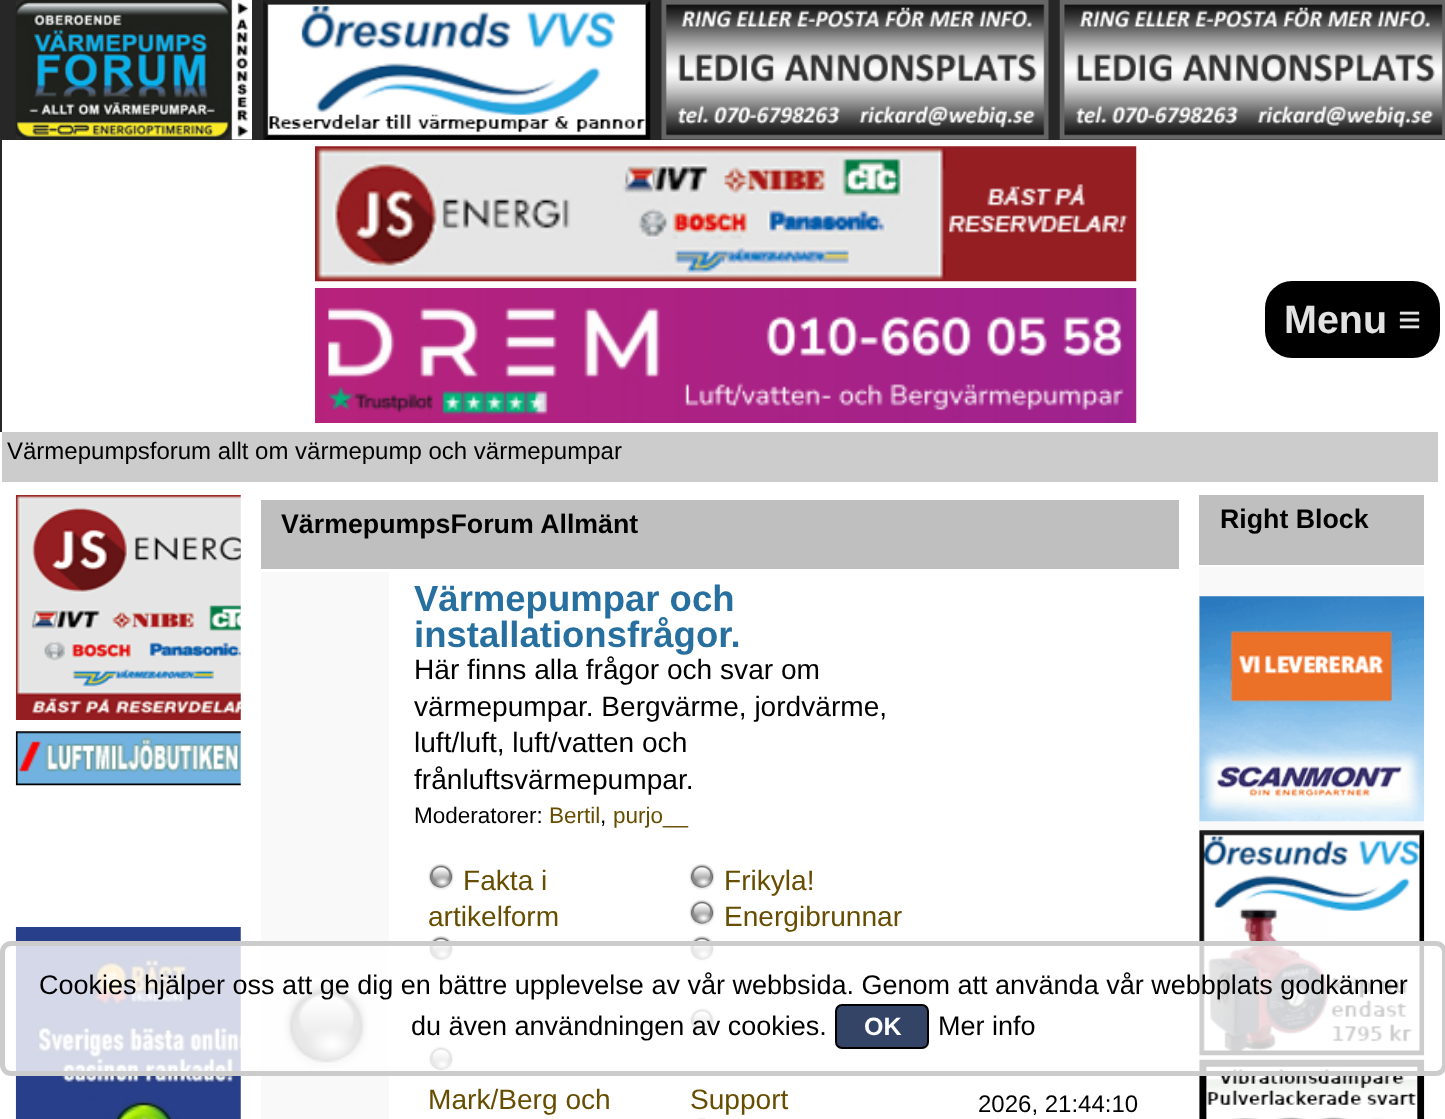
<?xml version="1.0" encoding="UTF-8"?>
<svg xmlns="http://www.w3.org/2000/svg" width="1445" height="1119">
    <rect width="100%" height="100%" fill="#FFFFFF"/>
    <rect x="0" y="0" width="1445" height="432" fill="#272727"/>
    <image x="15" y="0" width="237" height="140" href="img_01.png"/>
    <image x="263" y="0" width="388" height="140" href="img_02.png"/>
    <image x="661" y="0" width="388" height="140" href="img_03.png"/>
    <image x="1059" y="0" width="386" height="140" href="img_04.png"/>
    <rect x="2" y="140" width="1443" height="292" fill="#FFFFFF"/>
    <image x="315" y="146" width="822" height="136" href="img_05.png"/>
    <image x="315" y="288" width="822" height="135" href="img_06.png"/>
    <rect x="1265" y="281" width="175" height="77" rx="27" fill="#000000"/>
    <text x="1284" y="333" font-family="Liberation Sans" font-size="39.5" font-weight="700" fill="#E2E2E2">Menu ≡</text>
    <rect x="2" y="432" width="1436" height="50" fill="#CCCCCC"/>
    <text x="7" y="459" font-family="Liberation Sans" font-size="24" fill="#000000">Värmepumpsforum allt om värmepump och värmepumpar</text>
    <image x="15" y="495" width="226" height="225" href="img_07.png"/>
    <image x="15" y="731" width="226" height="55" href="img_08.png"/>
    <image x="15" y="927" width="226" height="192" href="img_09.png"/>
    <rect x="261" y="500" width="918" height="69" fill="#BFBFBF"/>
    <text x="281" y="533" font-family="Liberation Sans" font-size="26.75" font-weight="700" fill="#000000">VärmepumpsForum Allmänt</text>
    <rect x="261" y="572" width="128" height="547" fill="#F9F9F9"/>
    <image x="283" y="983" width="86" height="88" href="img_10.png"/>
    <text font-family="Liberation Sans" font-size="36.5" font-weight="700" fill="#266F9F">
        <tspan x="414" y="611">Värmepumpar och</tspan>
        <tspan x="414" y="647">installationsfrågor.</tspan>
    </text>
    <text font-family="Liberation Sans" font-size="28.1" fill="#000000">
        <tspan x="414" y="679">Här finns alla frågor och svar om</tspan>
        <tspan x="414" y="716">värmepumpar. Bergvärme, jordvärme,</tspan>
        <tspan x="414" y="752">luft/luft, luft/vatten och</tspan>
        <tspan x="414" y="789">frånluftsvärmepumpar.</tspan>
    </text>
    <text x="414" y="823" font-family="Liberation Sans" font-size="22.5" fill="#000000">Moderatorer:</text>
    <text x="549" y="823" font-family="Liberation Sans" font-size="22.5" fill="#664D00">Bertil</text>
    <text x="600" y="823" font-family="Liberation Sans" font-size="22.5" fill="#000000">,</text>
    <text x="613" y="823" font-family="Liberation Sans" font-size="22.5" fill="#664D00">purjo__</text>
    <image x="428" y="864" width="26" height="26" href="img_11.png"/>
    <text x="463" y="890" font-family="Liberation Sans" font-size="28.1" fill="#664D00">Fakta i</text>
    <text x="428" y="926" font-family="Liberation Sans" font-size="28.1" fill="#664D00">artikelform</text>
    <image x="428" y="936" width="26" height="26" href="img_11.png"/>
    <image x="428" y="1046" width="26" height="25" href="img_12.png"/>
    <text x="428" y="1109" font-family="Liberation Sans" font-size="28.1" fill="#664D00">Mark/Berg och</text>
    <image x="689" y="864" width="26" height="26" href="img_11.png"/>
    <text x="724" y="890" font-family="Liberation Sans" font-size="28.1" fill="#664D00">Frikyla!</text>
    <image x="689" y="900" width="26" height="26" href="img_11.png"/>
    <text x="724" y="926" font-family="Liberation Sans" font-size="28.1" fill="#664D00">Energibrunnar</text>
    <image x="689" y="936" width="26" height="26" href="img_11.png"/>
    <image x="689" y="1008" width="26" height="26" href="img_11.png"/>
    <text x="690" y="1109" font-family="Liberation Sans" font-size="28.1" fill="#664D00">Support</text>
    <image x="698" y="1118" width="8" height="1" href="img_13.png"/>
    <text x="978" y="1112" font-family="Liberation Sans" font-size="24" fill="#000000">2026, 21:44:10</text>
    <rect x="1199" y="495" width="225" height="70" fill="#BFBFBF"/>
    <text x="1220" y="528" font-family="Liberation Sans" font-size="26.75" font-weight="700" fill="#000000">Right Block</text>
    <rect x="1199" y="567" width="225" height="552" fill="#F9F9F9"/>
    <image x="1199" y="596" width="226" height="226" href="img_14.png"/>
    <image x="1199" y="830" width="226" height="226" href="img_15.png"/>
    <image x="1199" y="1059" width="226" height="60" href="img_16.png"/>
    <rect x="2.5" y="943.5" width="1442" height="130" rx="8.5" fill="#FFFFFF" fill-opacity="0.8" stroke="#CCCCCC" stroke-width="5"/>
    <text x="39" y="994" font-family="Liberation Sans" font-size="27" fill="#000000">Cookies hjälper oss att ge dig en bättre upplevelse av vår webbsida. Genom att använda vår webbplats godkänner</text>
    <text x="411" y="1035" font-family="Liberation Sans" font-size="27" fill="#000000">du även användningen av cookies.</text>
    <rect x="836" y="1005" width="92" height="43" rx="6" fill="#334466" stroke="#000000" stroke-width="2"/>
    <text x="864" y="1035" font-family="Liberation Sans" font-size="25" font-weight="700" fill="#FFFFFF">OK</text>
    <text x="938" y="1035" font-family="Liberation Sans" font-size="27" fill="#000000">Mer info</text>
</svg>
